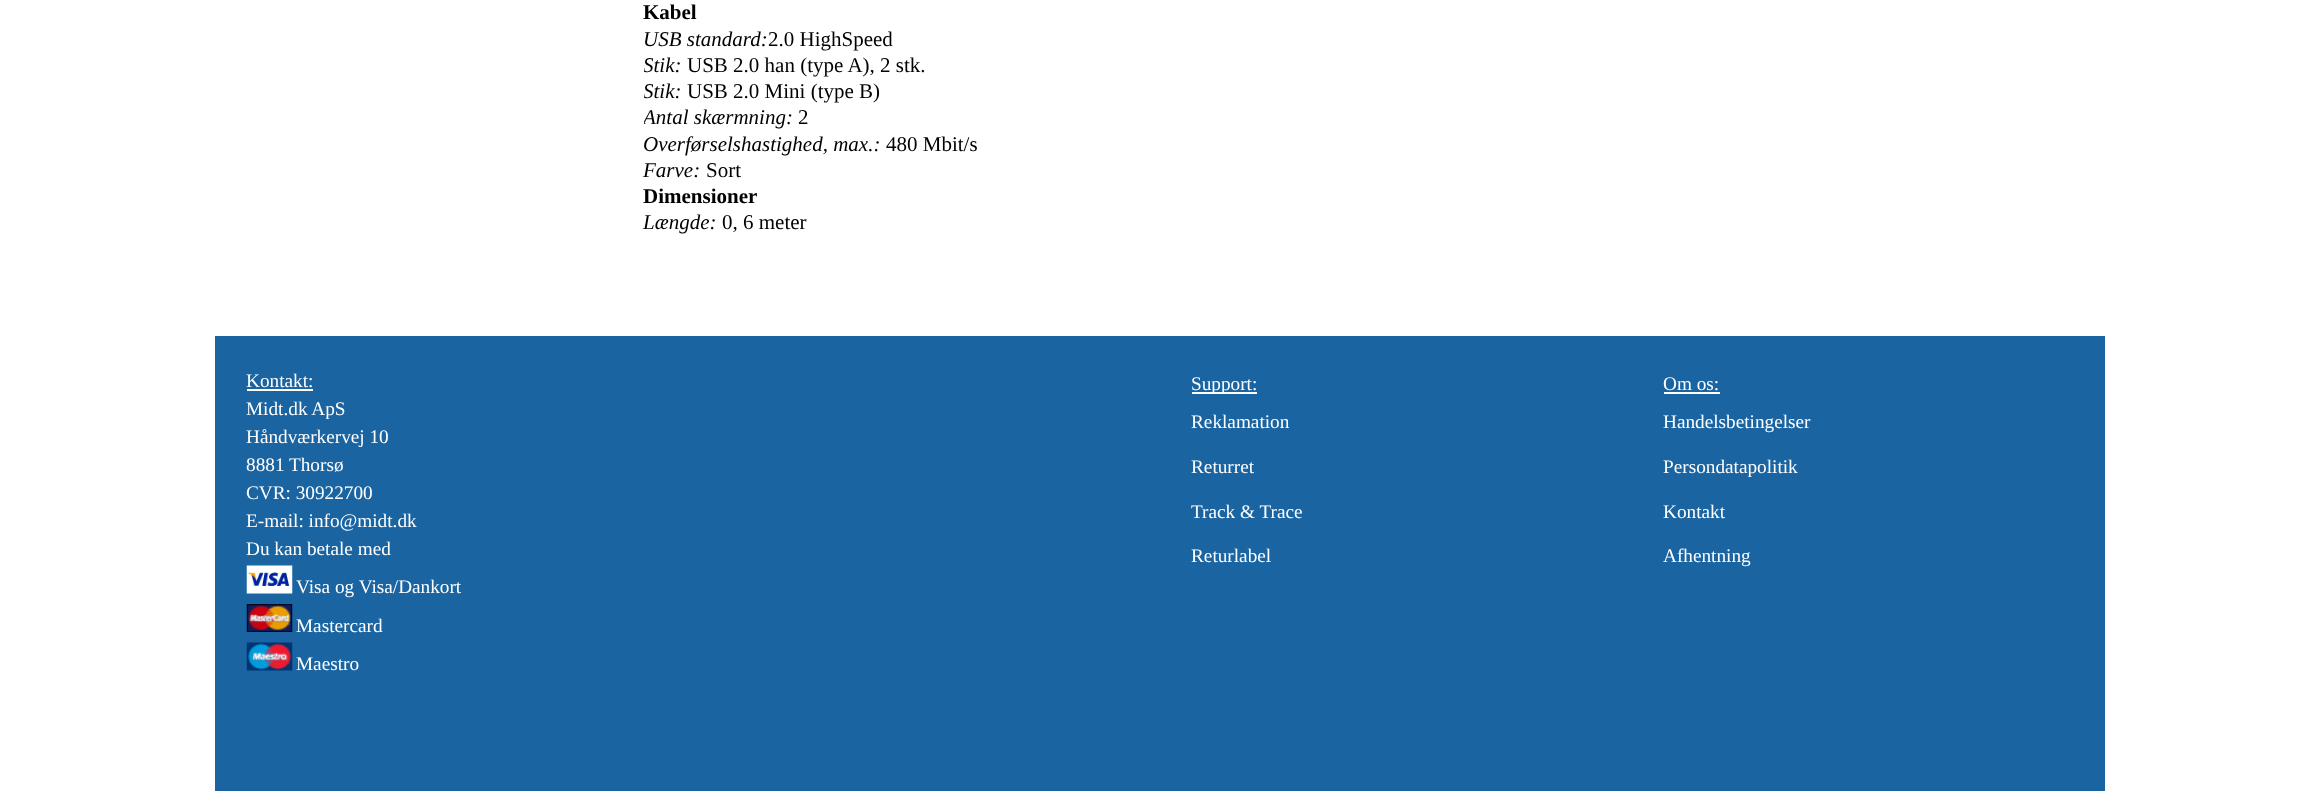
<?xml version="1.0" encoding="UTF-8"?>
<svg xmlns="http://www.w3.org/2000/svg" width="2318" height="811">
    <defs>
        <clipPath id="clip1"><rect x="644" y="0" width="681" height="236"/></clipPath>
    </defs>
    <rect width="100%" height="100%" fill="#FFFFFF"/>
    <text x="643" y="19" font-family="Liberation Serif" font-size="21" font-weight="700" fill="#000000">Kabel</text>
    <text x="643" y="46" font-family="Liberation Serif" font-size="21" font-style="italic" fill="#000000">USB standard:</text>
    <text x="768" y="46" font-family="Liberation Serif" font-size="21" fill="#000000">2.0 HighSpeed</text>
    <g clip-path="url(#clip1)">
        <text x="643" y="72" font-family="Liberation Serif" font-size="21" font-style="italic" fill="#000000">Stik:</text>
    </g>
    <text x="687" y="72" font-family="Liberation Serif" font-size="21" fill="#000000">USB 2.0 han (type A), 2 stk.</text>
    <g clip-path="url(#clip1)">
        <text x="643" y="98" font-family="Liberation Serif" font-size="21" font-style="italic" fill="#000000">Stik:</text>
    </g>
    <text x="687" y="98" font-family="Liberation Serif" font-size="21" fill="#000000">USB 2.0 Mini (type B)</text>
    <g clip-path="url(#clip1)">
        <text x="643" y="124" font-family="Liberation Serif" font-size="21" font-style="italic" fill="#000000">Antal skærmning:</text>
    </g>
    <text x="798" y="124" font-family="Liberation Serif" font-size="21" fill="#000000">2</text>
    <text x="643" y="151" font-family="Liberation Serif" font-size="21" font-style="italic" fill="#000000">Overførselshastighed, max.:</text>
    <text x="886" y="151" font-family="Liberation Serif" font-size="21" fill="#000000">480 Mbit/s</text>
    <text x="643" y="177" font-family="Liberation Serif" font-size="21" font-style="italic" fill="#000000">Farve:</text>
    <text x="706" y="177" font-family="Liberation Serif" font-size="21" fill="#000000">Sort</text>
    <text x="643" y="203" font-family="Liberation Serif" font-size="21" font-weight="700" fill="#000000">Dimensioner</text>
    <text x="643" y="229" font-family="Liberation Serif" font-size="21" font-style="italic" fill="#000000">Længde:</text>
    <text x="722" y="229" font-family="Liberation Serif" font-size="21" fill="#000000">0, 6 meter</text>
    <rect x="215" y="336" width="1890" height="455" fill="#1A64A2"/>
    <text x="246" y="387" font-family="Liberation Serif" font-size="19.25" fill="#FFFFFF">Kontakt:</text>
    <rect x="247" y="389" width="66" height="2" fill="#FFFFFF"/>
    <text font-family="Liberation Serif" font-size="19.25" fill="#FFFFFF">
        <tspan x="246" y="415">Midt.dk ApS</tspan>
        <tspan x="246" y="443">Håndværkervej 10</tspan>
        <tspan x="246" y="471">8881 Thorsø</tspan>
        <tspan x="246" y="499">CVR: 30922700</tspan>
        <tspan x="246" y="527">E-mail: info@midt.dk</tspan>
        <tspan x="246" y="555">Du kan betale med</tspan>
    </text>
    <image x="246" y="565" width="47" height="29" href="img_01.png"/>
    <text x="296" y="593" font-family="Liberation Serif" font-size="19.25" fill="#FFFFFF">Visa og Visa/Dankort</text>
    <image x="246" y="604" width="47" height="28" href="img_02.png"/>
    <text x="296" y="632" font-family="Liberation Serif" font-size="19.25" fill="#FFFFFF">Mastercard</text>
    <image x="246" y="642" width="47" height="29" href="img_03.png"/>
    <text x="296" y="670" font-family="Liberation Serif" font-size="19.25" fill="#FFFFFF">Maestro</text>
    <rect x="1192" y="392" width="65" height="2" fill="#FFFFFF"/>
    <text font-family="Liberation Serif" font-size="19.25" fill="#FFFFFF">
        <tspan x="1191" y="390">Support:</tspan>
        <tspan x="1191" y="428">Reklamation</tspan>
    </text>
    <text x="1191" y="473" font-family="Liberation Serif" font-size="19.25" fill="#FFFFFF">Returret</text>
    <text x="1191" y="518" font-family="Liberation Serif" font-size="19.25" fill="#FFFFFF">Track &amp; Trace</text>
    <text x="1191" y="562" font-family="Liberation Serif" font-size="19.25" fill="#FFFFFF">Returlabel</text>
    <text x="1663" y="390" font-family="Liberation Serif" font-size="19.25" fill="#FFFFFF">Om os:</text>
    <rect x="1664" y="392" width="56" height="2" fill="#FFFFFF"/>
    <text x="1663" y="428" font-family="Liberation Serif" font-size="19.25" fill="#FFFFFF">Handelsbetingelser</text>
    <text x="1663" y="473" font-family="Liberation Serif" font-size="19.25" fill="#FFFFFF">Persondatapolitik</text>
    <text x="1663" y="518" font-family="Liberation Serif" font-size="19.25" fill="#FFFFFF">Kontakt</text>
    <text x="1663" y="562" font-family="Liberation Serif" font-size="19.25" fill="#FFFFFF">Afhentning</text>
</svg>
